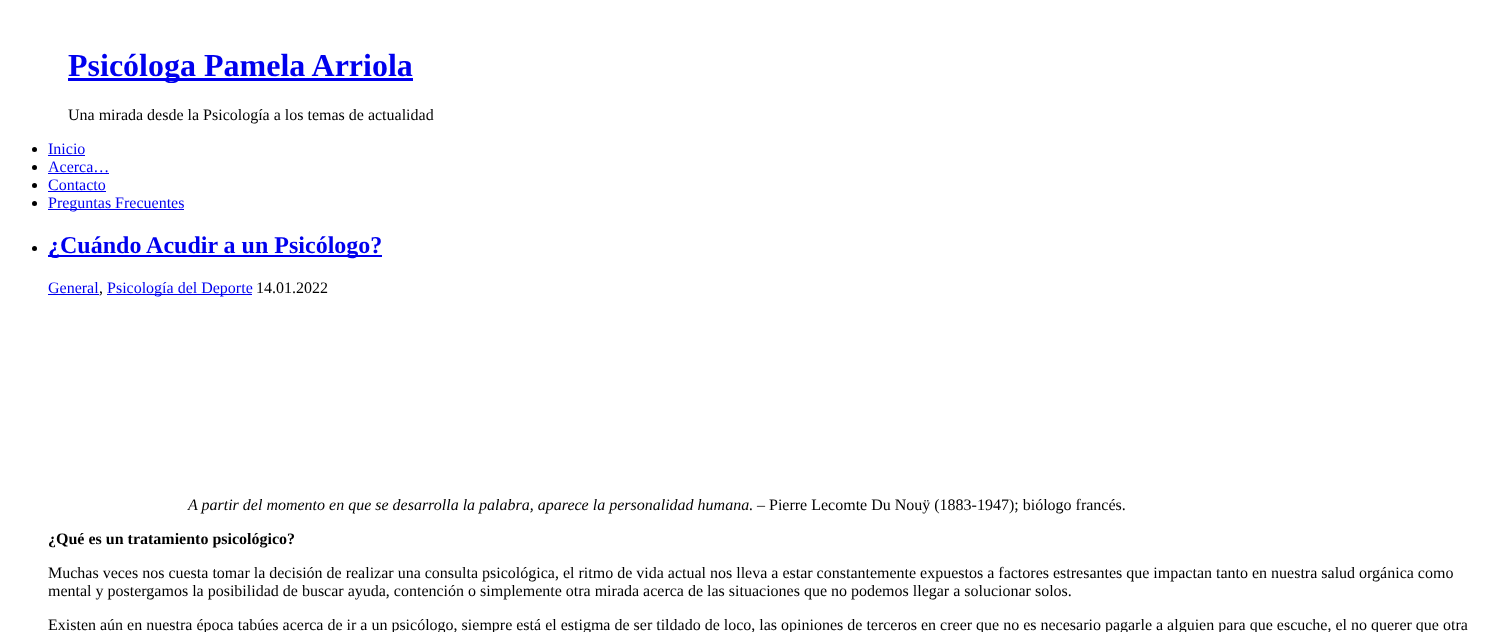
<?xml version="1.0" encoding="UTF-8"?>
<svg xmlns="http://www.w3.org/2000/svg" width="1496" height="632">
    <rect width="100%" height="100%" fill="#FFFFFF"/>
    <rect x="68" y="78" width="345" height="3" fill="#0000EE"/>
    <text x="68" y="76" font-family="Liberation Serif" font-size="32" font-weight="700" fill="#0000EE">Psicóloga Pamela Arriola</text>
    <text x="68" y="120" font-family="Liberation Serif" font-size="16" fill="#000000">Una mirada desde la Psicología a los temas de actualidad</text>
    <circle cx="34.5" cy="149.5" r="2.5" fill="#000000"/>
    <text x="48" y="154" font-family="Liberation Serif" font-size="16" fill="#0000EE">Inicio</text>
    <rect x="48" y="155" width="37" height="1" fill="#0000EE"/>
    <circle cx="34.5" cy="167.5" r="2.5" fill="#000000"/>
    <text x="48" y="172" font-family="Liberation Serif" font-size="16" fill="#0000EE">Acerca…</text>
    <rect x="48" y="173" width="61" height="1" fill="#0000EE"/>
    <circle cx="34.5" cy="185.5" r="2.5" fill="#000000"/>
    <text x="48" y="190" font-family="Liberation Serif" font-size="16" fill="#0000EE">Contacto</text>
    <rect x="48" y="191" width="58" height="1" fill="#0000EE"/>
    <circle cx="34.5" cy="203.5" r="2.5" fill="#000000"/>
    <rect x="48" y="209" width="136" height="1" fill="#0000EE"/>
    <text x="48" y="208" font-family="Liberation Serif" font-size="16" fill="#0000EE">Preguntas Frecuentes</text>
    <circle cx="34.5" cy="248.5" r="2.5" fill="#000000"/>
    <rect x="48" y="255" width="334" height="2" fill="#0000EE"/>
    <text x="48" y="253" font-family="Liberation Serif" font-size="24" font-weight="700" fill="#0000EE">¿Cuándo Acudir a un Psicólogo?</text>
    <text x="48" y="293" font-family="Liberation Serif" font-size="16" fill="#0000EE">General</text>
    <text x="99" y="293" font-family="Liberation Serif" font-size="16" fill="#000000">,</text>
    <rect x="48" y="294" width="51" height="1" fill="#0000EE"/>
    <rect x="107" y="294" width="145" height="1" fill="#0000EE"/>
    <text x="107" y="293" font-family="Liberation Serif" font-size="16" fill="#0000EE">Psicología del Deporte</text>
    <text x="256" y="293" font-family="Liberation Serif" font-size="16" fill="#000000">14.01.2022</text>
    <text x="188" y="510" font-family="Liberation Serif" font-size="16" font-style="italic" fill="#000000">A partir del momento en que se desarrolla la palabra, aparece la personalidad humana.</text>
    <text x="757" y="510" font-family="Liberation Serif" font-size="16" fill="#000000">– Pierre Lecomte Du Nouÿ (1883-1947); biólogo francés.</text>
    <text x="48" y="544" font-family="Liberation Serif" font-size="16" font-weight="700" fill="#000000">¿Qué es un tratamiento psicológico?</text>
    <text font-family="Liberation Serif" font-size="16" fill="#000000">
        <tspan x="48" y="578">Muchas veces nos cuesta tomar la decisión de realizar una consulta psicológica, el ritmo de vida actual nos lleva a estar constantemente expuestos a factores estresantes que impactan tanto en nuestra salud orgánica como</tspan>
        <tspan x="48" y="596">mental y postergamos la posibilidad de buscar ayuda, contención o simplemente otra mirada acerca de las situaciones que no podemos llegar a solucionar solos.</tspan>
    </text>
    <text x="48" y="630" font-family="Liberation Serif" font-size="16" fill="#000000">Existen aún en nuestra época tabúes acerca de ir a un psicólogo, siempre está el estigma de ser tildado de loco, las opiniones de terceros en creer que no es necesario pagarle a alguien para que escuche, el no querer que otra</text>
</svg>
